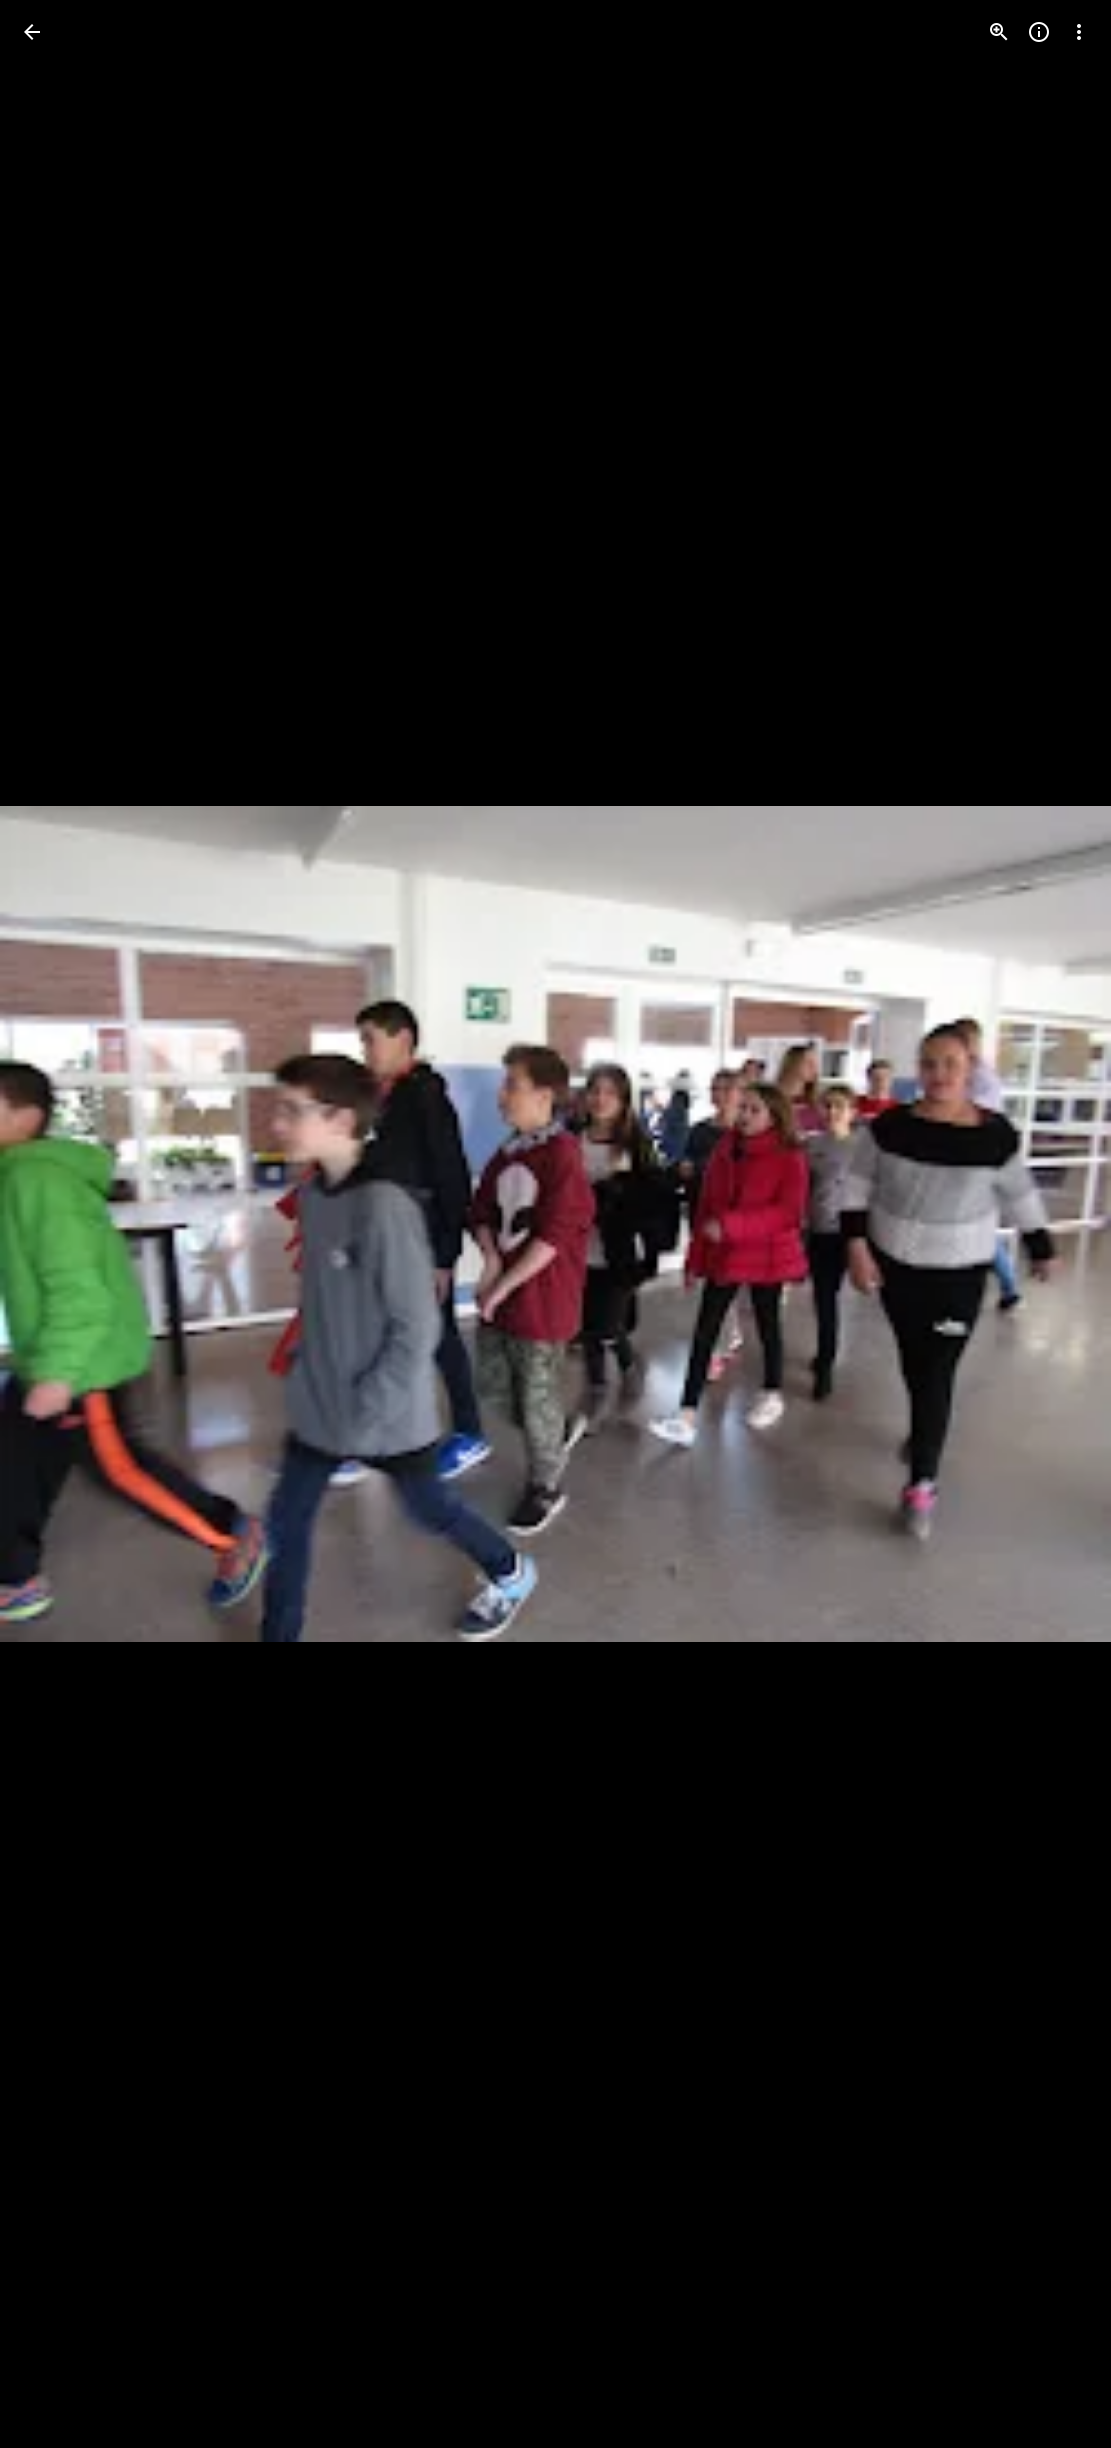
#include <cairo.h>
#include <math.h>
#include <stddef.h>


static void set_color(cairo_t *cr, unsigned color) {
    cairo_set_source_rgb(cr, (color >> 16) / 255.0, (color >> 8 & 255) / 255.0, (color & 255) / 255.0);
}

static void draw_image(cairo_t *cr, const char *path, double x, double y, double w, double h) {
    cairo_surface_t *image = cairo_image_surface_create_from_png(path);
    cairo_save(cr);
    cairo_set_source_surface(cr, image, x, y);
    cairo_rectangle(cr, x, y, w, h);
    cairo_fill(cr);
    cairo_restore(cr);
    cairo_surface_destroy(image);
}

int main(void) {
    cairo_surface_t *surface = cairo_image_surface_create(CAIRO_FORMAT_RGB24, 1111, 2448);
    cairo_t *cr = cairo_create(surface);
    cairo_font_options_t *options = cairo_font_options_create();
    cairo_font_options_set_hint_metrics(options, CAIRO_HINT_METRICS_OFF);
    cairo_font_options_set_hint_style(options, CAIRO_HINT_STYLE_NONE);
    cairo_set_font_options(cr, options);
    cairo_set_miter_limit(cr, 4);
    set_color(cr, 0x000000);
    cairo_paint(cr);
    draw_image(cr, "assets/img1.png", 24, 24, 16, 16);
    draw_image(cr, "assets/img2.png", 990, 23, 18, 18);
    draw_image(cr, "assets/img3.png", 1029, 22, 20, 20);
    draw_image(cr, "assets/img4.png", 1077, 24, 4, 16);
    draw_image(cr, "assets/img5.png", 0, 806, 1111, 836);
    cairo_surface_write_to_png(surface, "output.png");
    cairo_font_options_destroy(options);
    cairo_destroy(cr);
    cairo_surface_destroy(surface);
    return 0;
}
